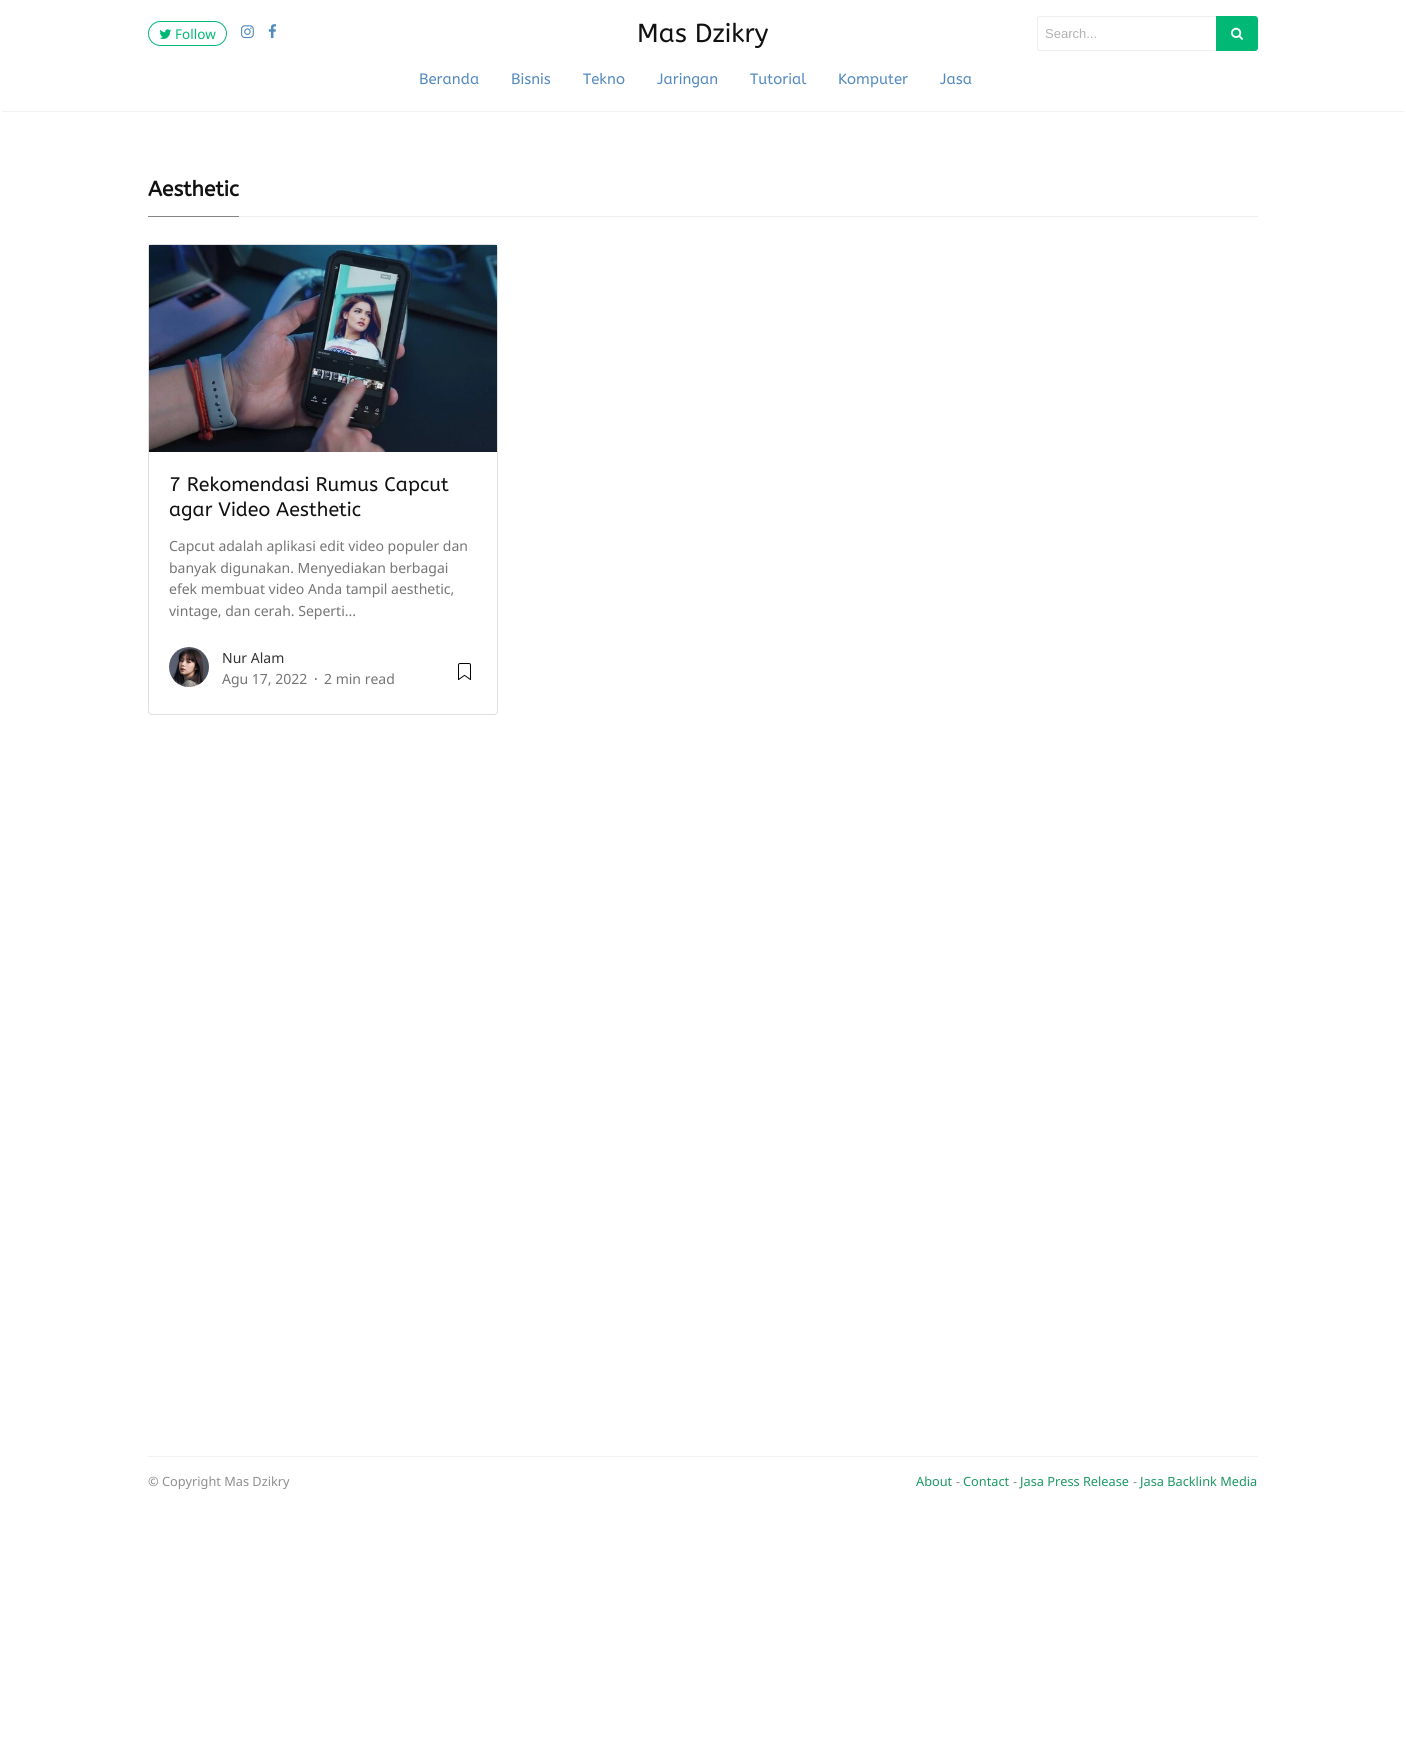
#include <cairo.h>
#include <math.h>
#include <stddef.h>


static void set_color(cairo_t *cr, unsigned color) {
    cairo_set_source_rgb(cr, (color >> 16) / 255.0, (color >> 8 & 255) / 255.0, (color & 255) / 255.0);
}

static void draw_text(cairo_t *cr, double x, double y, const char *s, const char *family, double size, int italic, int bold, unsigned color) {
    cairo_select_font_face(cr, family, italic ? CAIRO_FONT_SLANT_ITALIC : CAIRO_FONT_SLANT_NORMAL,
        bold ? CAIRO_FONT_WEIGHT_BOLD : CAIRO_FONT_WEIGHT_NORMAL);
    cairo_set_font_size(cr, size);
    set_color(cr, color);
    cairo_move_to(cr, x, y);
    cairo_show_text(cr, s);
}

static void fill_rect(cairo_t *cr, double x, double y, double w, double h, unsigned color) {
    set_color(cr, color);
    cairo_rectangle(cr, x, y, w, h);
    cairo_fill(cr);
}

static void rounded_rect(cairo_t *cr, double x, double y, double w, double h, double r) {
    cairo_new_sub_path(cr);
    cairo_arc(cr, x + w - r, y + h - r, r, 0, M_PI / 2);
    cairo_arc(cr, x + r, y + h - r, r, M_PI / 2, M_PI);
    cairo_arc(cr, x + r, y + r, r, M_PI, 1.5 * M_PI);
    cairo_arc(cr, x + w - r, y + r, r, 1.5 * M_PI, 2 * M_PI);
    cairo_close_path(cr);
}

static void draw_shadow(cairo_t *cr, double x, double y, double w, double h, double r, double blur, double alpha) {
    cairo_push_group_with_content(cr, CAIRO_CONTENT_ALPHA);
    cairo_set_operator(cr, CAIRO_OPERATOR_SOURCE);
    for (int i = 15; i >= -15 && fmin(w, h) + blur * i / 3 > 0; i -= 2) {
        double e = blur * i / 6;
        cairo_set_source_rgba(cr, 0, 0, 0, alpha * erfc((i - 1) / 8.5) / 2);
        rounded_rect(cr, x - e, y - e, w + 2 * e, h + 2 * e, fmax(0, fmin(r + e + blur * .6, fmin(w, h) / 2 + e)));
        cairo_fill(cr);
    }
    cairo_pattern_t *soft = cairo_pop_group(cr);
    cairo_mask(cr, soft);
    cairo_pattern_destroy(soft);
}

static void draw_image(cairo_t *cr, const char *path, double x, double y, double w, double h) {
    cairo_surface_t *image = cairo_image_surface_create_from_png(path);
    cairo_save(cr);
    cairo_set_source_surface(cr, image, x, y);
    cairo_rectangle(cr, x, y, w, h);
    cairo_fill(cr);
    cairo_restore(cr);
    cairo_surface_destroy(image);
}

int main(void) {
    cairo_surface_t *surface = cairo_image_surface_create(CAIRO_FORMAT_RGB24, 1406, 1754);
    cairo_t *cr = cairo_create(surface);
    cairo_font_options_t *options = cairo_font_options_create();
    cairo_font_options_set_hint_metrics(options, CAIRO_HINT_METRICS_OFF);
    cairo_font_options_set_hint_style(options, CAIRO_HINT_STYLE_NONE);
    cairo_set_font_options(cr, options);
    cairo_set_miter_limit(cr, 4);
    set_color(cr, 0xFFFFFF);
    cairo_paint(cr);
    cairo_save(cr);
    cairo_rectangle(cr, 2, 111, 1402, 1);
    cairo_clip(cr);
    set_color(cr, 0x000000);
    draw_shadow(cr, 2, 4, 1402, 107, 0, 1, 0.15);
    cairo_restore(cr);
    rounded_rect(cr, 148.5, 21.5, 78, 24, 12);
    set_color(cr, 0x02B875);
    cairo_set_line_width(cr, 1);
    cairo_stroke(cr);
    draw_image(cr, "assets/img1.png", 159, 29, 13, 10);
    draw_text(cr, 175, 39, "Follow", "Noto Sans", 13.5, 0, 0, 0x02B875);
    draw_image(cr, "assets/img2.png", 241, 25, 13, 14);
    draw_image(cr, "assets/img3.png", 268, 24, 9, 15);
    draw_text(cr, 637, 42, "Mas Dzikry", "ABeeZee", 26, 0, 0, 0x111111);
    cairo_new_path(cr);
    cairo_move_to(cr, 1040, 16.5);
    cairo_line_to(cr, 1216.5, 16.5);
    cairo_line_to(cr, 1216.5, 50.5);
    cairo_line_to(cr, 1040, 50.5);
    cairo_curve_to(cr, 1038.5, 50.5, 1037.5, 49.5, 1037.5, 48);
    cairo_line_to(cr, 1037.5, 19);
    cairo_curve_to(cr, 1037.5, 17.5, 1038.5, 16.5, 1040, 16.5);
    cairo_close_path(cr);
    set_color(cr, 0xEEEEEE);
    cairo_stroke(cr);
    draw_text(cr, 1045, 38, "Search...", "Liberation Sans", 13, 0, 0, 0xB2B2B2);
    set_color(cr, 0x02B875);
    cairo_new_path(cr);
    cairo_move_to(cr, 1216, 16);
    cairo_line_to(cr, 1255, 16);
    cairo_curve_to(cr, 1256.5, 16, 1258, 17.5, 1258, 19);
    cairo_line_to(cr, 1258, 48);
    cairo_curve_to(cr, 1258, 49.5, 1256.5, 51, 1255, 51);
    cairo_line_to(cr, 1216, 51);
    cairo_close_path(cr);
    cairo_fill(cr);
    draw_image(cr, "assets/img4.png", 1231, 27, 12, 13);
    draw_text(cr, 419, 84, "Beranda", "ABeeZee", 15, 0, 0, 0x548BBF);
    draw_text(cr, 511, 84, "Bisnis", "ABeeZee", 15, 0, 0, 0x548BBF);
    draw_text(cr, 583, 84, "Tekno", "ABeeZee", 15, 0, 0, 0x548BBF);
    draw_text(cr, 657, 84, "Jaringan", "ABeeZee", 15, 0, 0, 0x548BBF);
    draw_text(cr, 750, 84, "Tutorial", "ABeeZee", 15, 0, 0, 0x548BBF);
    draw_text(cr, 838, 84, "Komputer", "ABeeZee", 15, 0, 0, 0x548BBF);
    draw_text(cr, 940, 84, "Jasa", "ABeeZee", 15, 0, 0, 0x548BBF);
    fill_rect(cr, 239, 216, 1019, 1, 0xEEEEEE);
    fill_rect(cr, 148, 216, 91, 1, 0x858585);
    draw_text(cr, 148, 196, "Aesthetic", "ABeeZee", 21, 0, 1, 0x111111);
    rounded_rect(cr, 148.5, 244.5, 349, 470, 3.5);
    set_color(cr, 0xDFDFDF);
    cairo_stroke(cr);
    draw_image(cr, "assets/img5.png", 149, 245, 348, 207);
    draw_text(cr, 169, 491, "7 Rekomendasi Rumus Capcut", "ABeeZee", 19.6, 0, 0, 0x111111);
    draw_text(cr, 169, 516, "agar Video Aesthetic", "ABeeZee", 19.6, 0, 0, 0x111111);
    draw_text(cr, 169, 551, "Capcut adalah aplikasi edit video populer dan", "Noto Sans", 14, 0, 0, 0x757575);
    draw_text(cr, 169, 573, "banyak digunakan. Menyediakan berbagai", "Noto Sans", 14, 0, 0, 0x757575);
    draw_text(cr, 169, 594, "efek membuat video Anda tampil aesthetic,", "Noto Sans", 14, 0, 0, 0x757575);
    draw_text(cr, 169, 616, "vintage, dan cerah. Seperti...", "Noto Sans", 14, 0, 0, 0x757575);
    draw_image(cr, "assets/img6.png", 169, 647, 40, 40);
    draw_text(cr, 222, 663, "Nur Alam", "Noto Sans", 14, 0, 0, 0x333333);
    draw_text(cr, 222, 684, "Agu 17, 2022", "Noto Sans", 14, 0, 0, 0x757575);
    draw_text(cr, 314, 684, "·", "Noto Sans", 14, 0, 0, 0x666666);
    draw_text(cr, 324, 684, "2 min read", "Noto Sans", 14, 0, 0, 0x757575);
    draw_image(cr, "assets/img7.png", 458, 663, 13, 18);
    fill_rect(cr, 148, 1456, 1110, 1, 0xF2F2F2);
    draw_text(cr, 148, 1486, "© Copyright Mas Dzikry", "Noto Sans", 12.75, 0, 0, 0x8F8F8F);
    draw_text(cr, 916, 1486, "About", "Noto Sans", 12.75, 0, 0, 0x1C9963);
    draw_text(cr, 956, 1486, "-", "Noto Sans", 12.75, 0, 0, 0x8F8F8F);
    draw_text(cr, 963, 1486, "Contact", "Noto Sans", 12.75, 0, 0, 0x1C9963);
    draw_text(cr, 1013, 1486, "-", "Noto Sans", 12.75, 0, 0, 0x8F8F8F);
    draw_text(cr, 1020, 1486, "Jasa Press Release", "Noto Sans", 12.75, 0, 0, 0x1C9963);
    draw_text(cr, 1133, 1486, "-", "Noto Sans", 12.75, 0, 0, 0x8F8F8F);
    draw_text(cr, 1140, 1486, "Jasa Backlink Media", "Noto Sans", 12.75, 0, 0, 0x1C9963);
    cairo_surface_write_to_png(surface, "output.png");
    cairo_font_options_destroy(options);
    cairo_destroy(cr);
    cairo_surface_destroy(surface);
    return 0;
}
